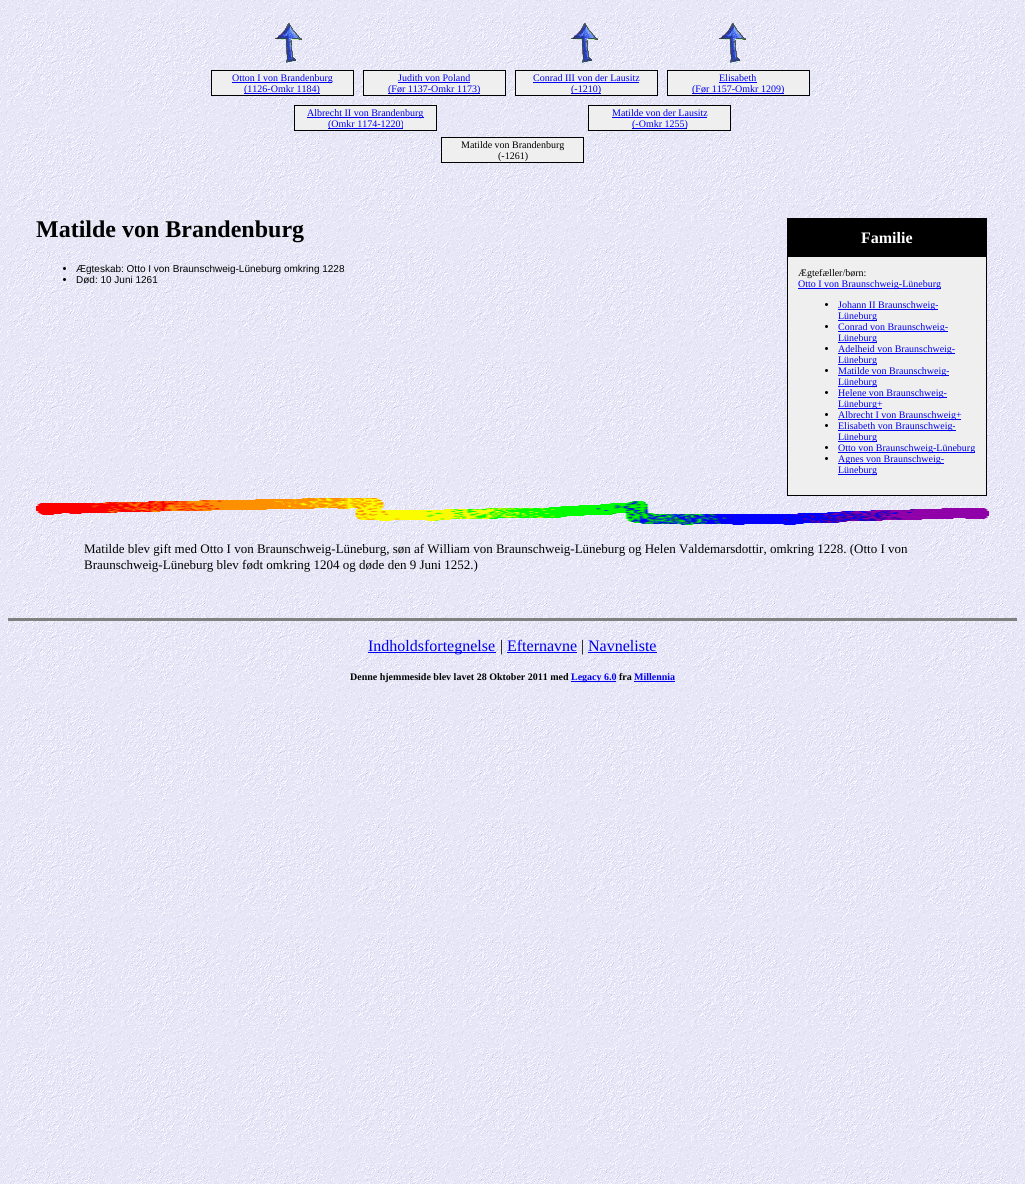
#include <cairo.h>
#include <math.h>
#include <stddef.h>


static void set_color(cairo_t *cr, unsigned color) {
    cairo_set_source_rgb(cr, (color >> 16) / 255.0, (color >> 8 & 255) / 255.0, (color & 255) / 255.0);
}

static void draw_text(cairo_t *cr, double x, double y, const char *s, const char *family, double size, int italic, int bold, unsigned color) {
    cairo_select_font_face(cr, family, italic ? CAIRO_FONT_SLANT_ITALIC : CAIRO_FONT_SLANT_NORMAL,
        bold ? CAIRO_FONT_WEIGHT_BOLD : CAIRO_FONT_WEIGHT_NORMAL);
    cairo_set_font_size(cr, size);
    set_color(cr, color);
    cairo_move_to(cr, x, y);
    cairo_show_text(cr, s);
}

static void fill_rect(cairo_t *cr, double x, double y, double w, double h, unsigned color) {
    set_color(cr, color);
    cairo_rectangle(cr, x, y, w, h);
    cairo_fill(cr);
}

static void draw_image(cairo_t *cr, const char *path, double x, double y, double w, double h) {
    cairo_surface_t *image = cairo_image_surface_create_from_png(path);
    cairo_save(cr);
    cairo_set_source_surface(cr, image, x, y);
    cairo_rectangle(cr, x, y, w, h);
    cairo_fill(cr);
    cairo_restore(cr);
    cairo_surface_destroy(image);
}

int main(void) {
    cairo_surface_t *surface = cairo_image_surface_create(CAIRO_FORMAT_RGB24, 1025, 1184);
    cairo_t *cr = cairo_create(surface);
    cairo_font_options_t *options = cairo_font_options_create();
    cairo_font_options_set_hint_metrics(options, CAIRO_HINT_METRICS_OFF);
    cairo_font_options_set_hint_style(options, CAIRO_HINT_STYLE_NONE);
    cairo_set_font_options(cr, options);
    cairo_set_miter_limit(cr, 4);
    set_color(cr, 0xFFFFFF);
    cairo_paint(cr);
    draw_image(cr, "assets/img1.png", 0, 0, 1025, 1184);
    draw_image(cr, "assets/img2.png", 275, 22, 27, 41);
    draw_image(cr, "assets/img3.png", 571, 22, 27, 41);
    draw_image(cr, "assets/img4.png", 719, 22, 27, 41);
    fill_rect(cr, 211, 70, 143, 26, 0x000000);
    fill_rect(cr, 212, 71, 141, 24, 0xEFEFEF);
    fill_rect(cr, 232, 82, 100, 1, 0x0000EE);
    draw_text(cr, 232, 81, "Otton I von Brandenburg", "Liberation Serif", 10, 0, 0, 0x0000EE);
    fill_rect(cr, 244, 93, 76, 1, 0x0000EE);
    draw_text(cr, 244, 92, "(1126-Omkr 1184)", "Liberation Serif", 10, 0, 0, 0x0000EE);
    fill_rect(cr, 363, 70, 143, 26, 0x000000);
    fill_rect(cr, 364, 71, 141, 24, 0xEFEFEF);
    draw_text(cr, 398, 81, "Judith von Poland", "Liberation Serif", 10, 0, 0, 0x0000EE);
    fill_rect(cr, 398, 82, 72, 1, 0x0000EE);
    fill_rect(cr, 388, 93, 92, 1, 0x0000EE);
    draw_text(cr, 388, 92, "(Før 1137-Omkr 1173)", "Liberation Serif", 10, 0, 0, 0x0000EE);
    fill_rect(cr, 515, 70, 143, 26, 0x000000);
    fill_rect(cr, 516, 71, 141, 24, 0xEFEFEF);
    draw_text(cr, 533, 81, "Conrad III von der Lausitz", "Liberation Serif", 10, 0, 0, 0x0000EE);
    fill_rect(cr, 533, 82, 106, 1, 0x0000EE);
    fill_rect(cr, 571, 93, 30, 1, 0x0000EE);
    draw_text(cr, 571, 92, "(-1210)", "Liberation Serif", 10, 0, 0, 0x0000EE);
    fill_rect(cr, 667, 70, 143, 26, 0x000000);
    fill_rect(cr, 668, 71, 141, 24, 0xEFEFEF);
    draw_text(cr, 719, 81, "Elisabeth", "Liberation Serif", 10, 0, 0, 0x0000EE);
    fill_rect(cr, 719, 82, 38, 1, 0x0000EE);
    fill_rect(cr, 692, 93, 92, 1, 0x0000EE);
    draw_text(cr, 692, 92, "(Før 1157-Omkr 1209)", "Liberation Serif", 10, 0, 0, 0x0000EE);
    fill_rect(cr, 294, 105, 143, 26, 0x000000);
    fill_rect(cr, 295, 106, 141, 24, 0xEFEFEF);
    fill_rect(cr, 307, 117, 117, 1, 0x0000EE);
    draw_text(cr, 307, 116, "Albrecht II von Brandenburg", "Liberation Serif", 10, 0, 0, 0x0000EE);
    fill_rect(cr, 328, 128, 75, 1, 0x0000EE);
    draw_text(cr, 328, 127, "(Omkr 1174-1220)", "Liberation Serif", 10, 0, 0, 0x0000EE);
    fill_rect(cr, 588, 105, 143, 26, 0x000000);
    fill_rect(cr, 589, 106, 141, 24, 0xEFEFEF);
    draw_text(cr, 612, 116, "Matilde von der Lausitz", "Liberation Serif", 10, 0, 0, 0x0000EE);
    fill_rect(cr, 612, 117, 95, 1, 0x0000EE);
    fill_rect(cr, 632, 128, 55, 1, 0x0000EE);
    draw_text(cr, 632, 127, "(-Omkr 1255)", "Liberation Serif", 10, 0, 0, 0x0000EE);
    fill_rect(cr, 441, 137, 143, 26, 0x000000);
    fill_rect(cr, 442, 138, 141, 24, 0xEFEFEF);
    draw_text(cr, 461, 148, "Matilde von Brandenburg", "Liberation Serif", 10, 0, 0, 0x000000);
    draw_text(cr, 498, 159, "(-1261)", "Liberation Serif", 10, 0, 0, 0x000000);
    draw_text(cr, 36, 237, "Matilde von Brandenburg", "Liberation Serif", 24, 0, 1, 0x000000);
    fill_rect(cr, 787, 218, 200, 278, 0x000000);
    draw_text(cr, 861, 243, "Familie", "Liberation Serif", 16, 0, 1, 0xFFFFFF);
    fill_rect(cr, 788, 257, 198, 238, 0xEFEFEF);
    draw_text(cr, 798, 276, "Ægtefæller/børn:", "Liberation Serif", 10, 0, 0, 0x000000);
    fill_rect(cr, 798, 288, 143, 1, 0x0000EE);
    draw_text(cr, 798, 287, "Otto I von Braunschweig-Lüneburg", "Liberation Serif", 10, 0, 0, 0x0000EE);
    set_color(cr, 0x000000);
    cairo_new_path(cr);
    cairo_arc(cr, 826.5, 304.5, 1.5, 0, 2 * M_PI);
    cairo_fill(cr);
    fill_rect(cr, 838, 309, 100, 1, 0x0000EE);
    draw_text(cr, 838, 308, "Johann II Braunschweig-", "Liberation Serif", 10, 0, 0, 0x0000EE);
    fill_rect(cr, 838, 320, 39, 1, 0x0000EE);
    draw_text(cr, 838, 319, "Lüneburg", "Liberation Serif", 10, 0, 0, 0x0000EE);
    set_color(cr, 0x000000);
    cairo_new_path(cr);
    cairo_arc(cr, 826.5, 326.5, 1.5, 0, 2 * M_PI);
    cairo_fill(cr);
    fill_rect(cr, 838, 331, 110, 1, 0x0000EE);
    draw_text(cr, 838, 330, "Conrad von Braunschweig-", "Liberation Serif", 10, 0, 0, 0x0000EE);
    fill_rect(cr, 838, 342, 39, 1, 0x0000EE);
    draw_text(cr, 838, 341, "Lüneburg", "Liberation Serif", 10, 0, 0, 0x0000EE);
    set_color(cr, 0x000000);
    cairo_new_path(cr);
    cairo_arc(cr, 826.5, 348.5, 1.5, 0, 2 * M_PI);
    cairo_fill(cr);
    fill_rect(cr, 838, 353, 117, 1, 0x0000EE);
    draw_text(cr, 838, 352, "Adelheid von Braunschweig-", "Liberation Serif", 10, 0, 0, 0x0000EE);
    fill_rect(cr, 838, 364, 39, 1, 0x0000EE);
    draw_text(cr, 838, 363, "Lüneburg", "Liberation Serif", 10, 0, 0, 0x0000EE);
    set_color(cr, 0x000000);
    cairo_new_path(cr);
    cairo_arc(cr, 826.5, 370.5, 1.5, 0, 2 * M_PI);
    cairo_fill(cr);
    fill_rect(cr, 838, 375, 111, 1, 0x0000EE);
    draw_text(cr, 838, 374, "Matilde von Braunschweig-", "Liberation Serif", 10, 0, 0, 0x0000EE);
    fill_rect(cr, 838, 386, 39, 1, 0x0000EE);
    draw_text(cr, 838, 385, "Lüneburg", "Liberation Serif", 10, 0, 0, 0x0000EE);
    set_color(cr, 0x000000);
    cairo_new_path(cr);
    cairo_arc(cr, 826.5, 392.5, 1.5, 0, 2 * M_PI);
    cairo_fill(cr);
    fill_rect(cr, 838, 397, 109, 1, 0x0000EE);
    draw_text(cr, 838, 396, "Helene von Braunschweig-", "Liberation Serif", 10, 0, 0, 0x0000EE);
    fill_rect(cr, 838, 408, 44, 1, 0x0000EE);
    draw_text(cr, 838, 407, "Lüneburg+", "Liberation Serif", 10, 0, 0, 0x0000EE);
    set_color(cr, 0x000000);
    cairo_new_path(cr);
    cairo_arc(cr, 826.5, 414.5, 1.5, 0, 2 * M_PI);
    cairo_fill(cr);
    fill_rect(cr, 838, 419, 123, 1, 0x0000EE);
    draw_text(cr, 838, 418, "Albrecht I von Braunschweig+", "Liberation Serif", 10, 0, 0, 0x0000EE);
    set_color(cr, 0x000000);
    cairo_new_path(cr);
    cairo_arc(cr, 826.5, 425.5, 1.5, 0, 2 * M_PI);
    cairo_fill(cr);
    fill_rect(cr, 838, 430, 118, 1, 0x0000EE);
    draw_text(cr, 838, 429, "Elisabeth von Braunschweig-", "Liberation Serif", 10, 0, 0, 0x0000EE);
    fill_rect(cr, 838, 441, 39, 1, 0x0000EE);
    draw_text(cr, 838, 440, "Lüneburg", "Liberation Serif", 10, 0, 0, 0x0000EE);
    set_color(cr, 0x000000);
    cairo_new_path(cr);
    cairo_arc(cr, 826.5, 447.5, 1.5, 0, 2 * M_PI);
    cairo_fill(cr);
    fill_rect(cr, 838, 452, 137, 1, 0x0000EE);
    draw_text(cr, 838, 451, "Otto von Braunschweig-Lüneburg", "Liberation Serif", 10, 0, 0, 0x0000EE);
    set_color(cr, 0x000000);
    cairo_new_path(cr);
    cairo_arc(cr, 826.5, 458.5, 1.5, 0, 2 * M_PI);
    cairo_fill(cr);
    fill_rect(cr, 838, 463, 106, 1, 0x0000EE);
    draw_text(cr, 838, 462, "Agnes von Braunschweig-", "Liberation Serif", 10, 0, 0, 0x0000EE);
    fill_rect(cr, 838, 474, 39, 1, 0x0000EE);
    draw_text(cr, 838, 473, "Lüneburg", "Liberation Serif", 10, 0, 0, 0x0000EE);
    set_color(cr, 0x000000);
    cairo_new_path(cr);
    cairo_arc(cr, 64.5, 268.5, 1.5, 0, 2 * M_PI);
    cairo_fill(cr);
    draw_text(cr, 76, 272, "Ægteskab: Otto I von Braunschweig-Lüneburg omkring 1228", "Liberation Sans", 10, 0, 0, 0x000000);
    cairo_new_path(cr);
    cairo_arc(cr, 64.5, 279.5, 1.5, 0, 2 * M_PI);
    cairo_fill(cr);
    draw_text(cr, 76, 283, "Død: 10 Juni 1261", "Liberation Sans", 10, 0, 0, 0x000000);
    draw_image(cr, "assets/img5.png", 36, 498, 953, 27);
    draw_text(cr, 84, 553, "Matilde blev gift med Otto I von Braunschweig-Lüneburg, søn af William von Braunschweig-Lüneburg og Helen Valdemarsdottir, omkring 1228. (Otto I von", "Liberation Serif", 13, 0, 0, 0x000000);
    draw_text(cr, 84, 569, "Braunschweig-Lüneburg blev født omkring 1204 og døde den 9 Juni 1252.)", "Liberation Serif", 13, 0, 0, 0x000000);
    fill_rect(cr, 8, 618, 1009, 3, 0x808080);
    fill_rect(cr, 368, 652, 128, 1, 0x0000EE);
    draw_text(cr, 368, 651, "Indholdsfortegnelse", "Liberation Serif", 16, 0, 0, 0x0000EE);
    draw_text(cr, 500, 651, "|", "Liberation Serif", 16, 0, 0, 0x000000);
    draw_text(cr, 507, 651, "Efternavne", "Liberation Serif", 16, 0, 0, 0x0000EE);
    fill_rect(cr, 507, 652, 70, 1, 0x0000EE);
    draw_text(cr, 581, 651, "|", "Liberation Serif", 16, 0, 0, 0x000000);
    draw_text(cr, 588, 651, "Navneliste", "Liberation Serif", 16, 0, 0, 0x0000EE);
    fill_rect(cr, 588, 652, 69, 1, 0x0000EE);
    draw_text(cr, 350, 680, "Denne hjemmeside blev lavet 28 Oktober 2011 med", "Liberation Serif", 10, 0, 1, 0x000000);
    fill_rect(cr, 571, 681, 45, 1, 0x0000EE);
    draw_text(cr, 571, 680, "Legacy 6.0", "Liberation Serif", 10, 0, 1, 0x0000EE);
    draw_text(cr, 619, 680, "fra", "Liberation Serif", 10, 0, 1, 0x000000);
    draw_text(cr, 634, 680, "Millennia", "Liberation Serif", 10, 0, 1, 0x0000EE);
    fill_rect(cr, 634, 681, 41, 1, 0x0000EE);
    cairo_surface_write_to_png(surface, "output.png");
    cairo_font_options_destroy(options);
    cairo_destroy(cr);
    cairo_surface_destroy(surface);
    return 0;
}
